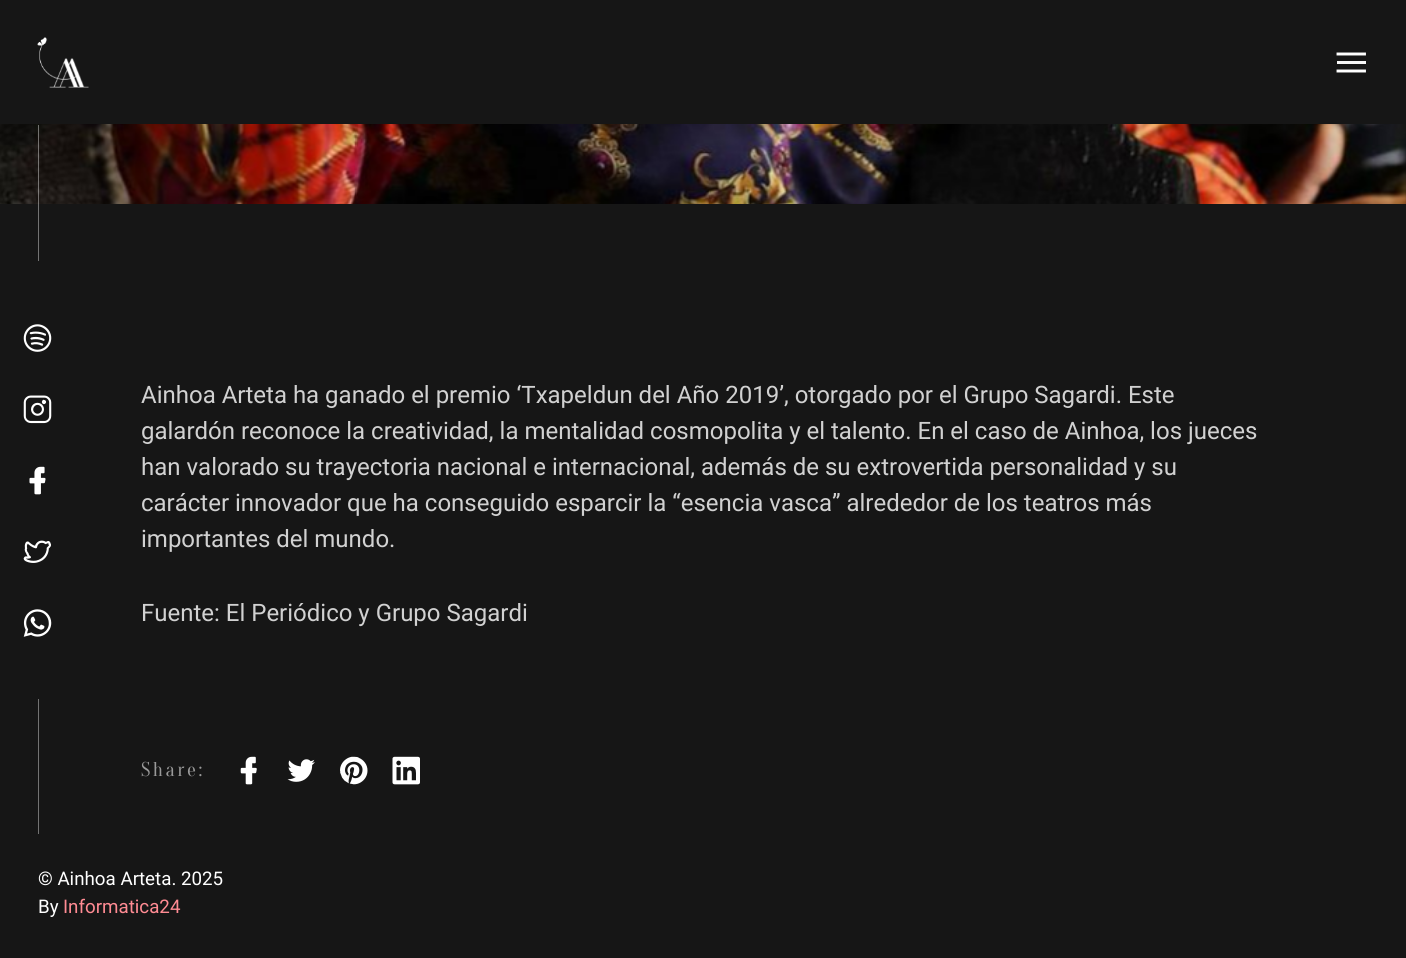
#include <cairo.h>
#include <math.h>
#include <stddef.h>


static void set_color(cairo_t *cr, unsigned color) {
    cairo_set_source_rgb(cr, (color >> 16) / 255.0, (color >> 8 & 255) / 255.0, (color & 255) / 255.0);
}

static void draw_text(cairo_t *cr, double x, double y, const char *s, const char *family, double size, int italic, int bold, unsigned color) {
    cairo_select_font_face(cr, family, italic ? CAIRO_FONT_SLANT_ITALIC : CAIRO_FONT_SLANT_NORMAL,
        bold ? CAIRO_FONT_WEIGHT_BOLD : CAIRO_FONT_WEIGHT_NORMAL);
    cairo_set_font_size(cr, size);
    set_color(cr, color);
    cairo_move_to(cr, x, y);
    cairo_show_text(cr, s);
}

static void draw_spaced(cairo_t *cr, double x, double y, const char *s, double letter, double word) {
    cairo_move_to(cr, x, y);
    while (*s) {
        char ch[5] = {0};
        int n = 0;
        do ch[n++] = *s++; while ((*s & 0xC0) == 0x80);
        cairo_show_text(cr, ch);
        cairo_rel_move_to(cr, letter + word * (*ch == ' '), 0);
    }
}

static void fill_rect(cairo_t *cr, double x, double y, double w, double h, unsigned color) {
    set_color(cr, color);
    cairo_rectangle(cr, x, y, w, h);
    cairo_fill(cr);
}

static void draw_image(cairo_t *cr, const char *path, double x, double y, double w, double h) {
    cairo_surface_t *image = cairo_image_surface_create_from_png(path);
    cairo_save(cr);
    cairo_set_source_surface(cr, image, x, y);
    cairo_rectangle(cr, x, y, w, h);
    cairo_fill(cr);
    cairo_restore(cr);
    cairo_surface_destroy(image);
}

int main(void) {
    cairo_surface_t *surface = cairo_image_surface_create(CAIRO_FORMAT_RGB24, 1406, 958);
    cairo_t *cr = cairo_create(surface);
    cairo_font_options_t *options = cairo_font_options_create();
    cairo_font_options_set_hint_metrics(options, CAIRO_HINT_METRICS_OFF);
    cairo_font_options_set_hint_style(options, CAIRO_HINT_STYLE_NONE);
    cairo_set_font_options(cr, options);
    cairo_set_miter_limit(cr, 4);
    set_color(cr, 0x161616);
    cairo_paint(cr);
    draw_image(cr, "assets/img1.png", 37, 37, 52, 51);
    fill_rect(cr, 1337, 61, 29, 3, 0xF7F7F7);
    cairo_new_path(cr);
    cairo_move_to(cr, 1338, 54);
    cairo_line_to(cr, 1364.5, 54);
    cairo_move_to(cr, 1338, 71);
    cairo_line_to(cr, 1364.5, 71);
    set_color(cr, 0xFFFFFF);
    cairo_set_line_width(cr, 2.9);
    cairo_set_line_cap(cr, CAIRO_LINE_CAP_SQUARE);
    cairo_set_line_join(cr, CAIRO_LINE_JOIN_ROUND);
    cairo_stroke(cr);
    draw_image(cr, "assets/img7.png", 0, 124, 1406, 80);
    cairo_set_source_rgba(cr, 1, 1, 1, 0.4);
    cairo_rectangle(cr, 38, 125, 1, 136);
    cairo_fill(cr);
    draw_image(cr, "assets/img2.png", 23, 324, 29, 28);
    draw_image(cr, "assets/img3.png", 23, 395, 29, 29);
    draw_image(cr, "assets/img4.png", 29, 466, 17, 29);
    draw_image(cr, "assets/img5.png", 23, 540, 28, 23);
    draw_image(cr, "assets/img6.png", 23, 609, 29, 28);
    fill_rect(cr, 38, 699, 1, 135, 0x737373);
    draw_text(cr, 141, 403, "Ainhoa Arteta ha ganado el premio ‘Txapeldun del Año 2019’, otorgado por el Grupo Sagardi. Este", "Roboto", 24, 0, 0, 0xD1D1D1);
    draw_text(cr, 141, 439, "galardón reconoce la creatividad, la mentalidad cosmopolita y el talento. En el caso de Ainhoa, los jueces", "Roboto", 24, 0, 0, 0xD1D1D1);
    draw_text(cr, 141, 475, "han valorado su trayectoria nacional e internacional, además de su extrovertida personalidad y su", "Roboto", 24, 0, 0, 0xD1D1D1);
    draw_text(cr, 141, 511, "carácter innovador que ha conseguido esparcir la “esencia vasca” alrededor de los teatros más", "Roboto", 24, 0, 0, 0xD1D1D1);
    draw_text(cr, 141, 547, "importantes del mundo.", "Roboto", 24, 0, 0, 0xD1D1D1);
    draw_text(cr, 141, 621, "Fuente: El Periódico y Grupo Sagardi", "Roboto", 24, 0, 0, 0xD1D1D1);
    cairo_select_font_face(cr, "Oranienbaum", CAIRO_FONT_SLANT_NORMAL, CAIRO_FONT_WEIGHT_NORMAL);
    cairo_set_font_size(cr, 20);
    set_color(cr, 0x999999);
    draw_spaced(cr, 141, 776, "Share:", 2.5, 0);
    draw_image(cr, "assets/img8.png", 240, 756, 17, 29);
    draw_image(cr, "assets/img9.png", 287, 759, 28, 23);
    draw_image(cr, "assets/img10.png", 340, 756, 28, 29);
    draw_image(cr, "assets/img11.png", 392, 756, 28, 29);
    draw_text(cr, 38, 885, "© Ainhoa Arteta. 2025", "Roboto", 18.75, 0, 0, 0xFFFFFF);
    draw_text(cr, 38, 913, "By", "Roboto", 18.75, 0, 0, 0xFFFFFF);
    draw_text(cr, 63, 913, "Informatica24", "Roboto", 18.75, 0, 0, 0xFF8B93);
    cairo_surface_write_to_png(surface, "output.png");
    cairo_font_options_destroy(options);
    cairo_destroy(cr);
    cairo_surface_destroy(surface);
    return 0;
}
